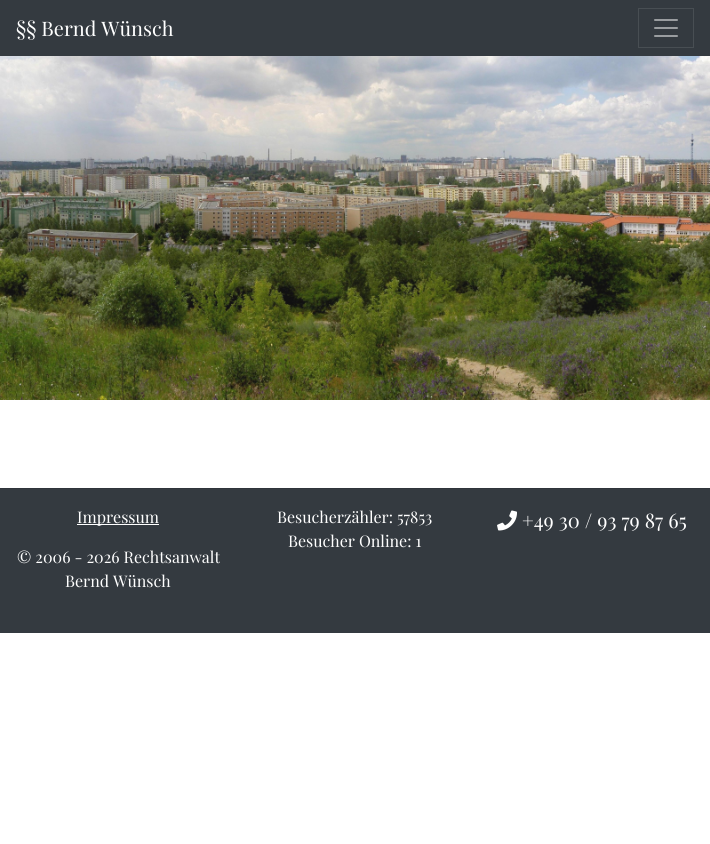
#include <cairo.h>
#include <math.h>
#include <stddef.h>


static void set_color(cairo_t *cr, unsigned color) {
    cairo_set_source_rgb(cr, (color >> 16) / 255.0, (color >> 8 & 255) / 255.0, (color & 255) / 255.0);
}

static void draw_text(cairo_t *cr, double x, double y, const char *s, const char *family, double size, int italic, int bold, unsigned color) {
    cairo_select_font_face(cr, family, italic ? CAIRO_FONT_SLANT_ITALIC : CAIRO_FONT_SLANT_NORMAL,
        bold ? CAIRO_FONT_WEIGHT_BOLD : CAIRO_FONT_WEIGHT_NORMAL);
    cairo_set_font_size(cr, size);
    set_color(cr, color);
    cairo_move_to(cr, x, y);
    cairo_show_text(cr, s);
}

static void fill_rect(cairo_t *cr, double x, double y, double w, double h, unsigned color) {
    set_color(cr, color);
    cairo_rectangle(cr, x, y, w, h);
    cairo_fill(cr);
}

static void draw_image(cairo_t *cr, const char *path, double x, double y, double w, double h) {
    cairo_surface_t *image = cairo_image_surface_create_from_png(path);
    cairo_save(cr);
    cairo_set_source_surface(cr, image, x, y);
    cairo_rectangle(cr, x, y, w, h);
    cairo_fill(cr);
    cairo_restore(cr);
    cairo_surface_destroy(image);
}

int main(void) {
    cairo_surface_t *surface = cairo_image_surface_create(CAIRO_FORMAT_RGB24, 710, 844);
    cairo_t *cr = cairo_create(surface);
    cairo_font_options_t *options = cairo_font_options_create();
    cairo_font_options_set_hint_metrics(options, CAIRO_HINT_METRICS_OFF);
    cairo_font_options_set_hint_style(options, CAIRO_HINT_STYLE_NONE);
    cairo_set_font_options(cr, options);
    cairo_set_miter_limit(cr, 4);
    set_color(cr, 0xFFFFFF);
    cairo_paint(cr);
    fill_rect(cr, 0, 0, 710, 56, 0x343A40);
    draw_text(cr, 16, 36, "§§ Bernd Wünsch", "Playfair Display", 20, 0, 0, 0xFFFFFF);
    cairo_rectangle(cr, 638.5, 8.5, 55, 39);
    set_color(cr, 0x484E53);
    cairo_set_line_width(cr, 1);
    cairo_stroke(cr);
    draw_image(cr, "assets/img1.png", 654, 19, 24, 18);
    draw_image(cr, "assets/img2.png", 0, 56, 710, 344);
    fill_rect(cr, 0, 489, 710, 144, 0x343A40);
    fill_rect(cr, 0, 488, 710, 1, 0x2F343A);
    fill_rect(cr, 77, 524, 82, 1, 0xFFFFFF);
    draw_text(cr, 77, 523, "Impressum", "Playfair Display", 16, 0, 0, 0xFFFFFF);
    draw_text(cr, 17, 563, "© 2006 - 2026 Rechtsanwalt", "Playfair Display", 16, 0, 0, 0xFFFFFF);
    draw_text(cr, 65, 587, "Bernd Wünsch", "Playfair Display", 16, 0, 0, 0xFFFFFF);
    draw_text(cr, 277, 523, "Besucherzähler: 57853", "Playfair Display", 16, 0, 0, 0xFFFFFF);
    draw_text(cr, 288, 547, "Besucher Online: 1", "Playfair Display", 16, 0, 0, 0xFFFFFF);
    draw_image(cr, "assets/img3.png", 497, 510, 20, 21);
    draw_text(cr, 522, 528, "+49 30 / 93 79 87 65", "Playfair Display", 20, 0, 0, 0xFFFFFF);
    cairo_surface_write_to_png(surface, "output.png");
    cairo_font_options_destroy(options);
    cairo_destroy(cr);
    cairo_surface_destroy(surface);
    return 0;
}
